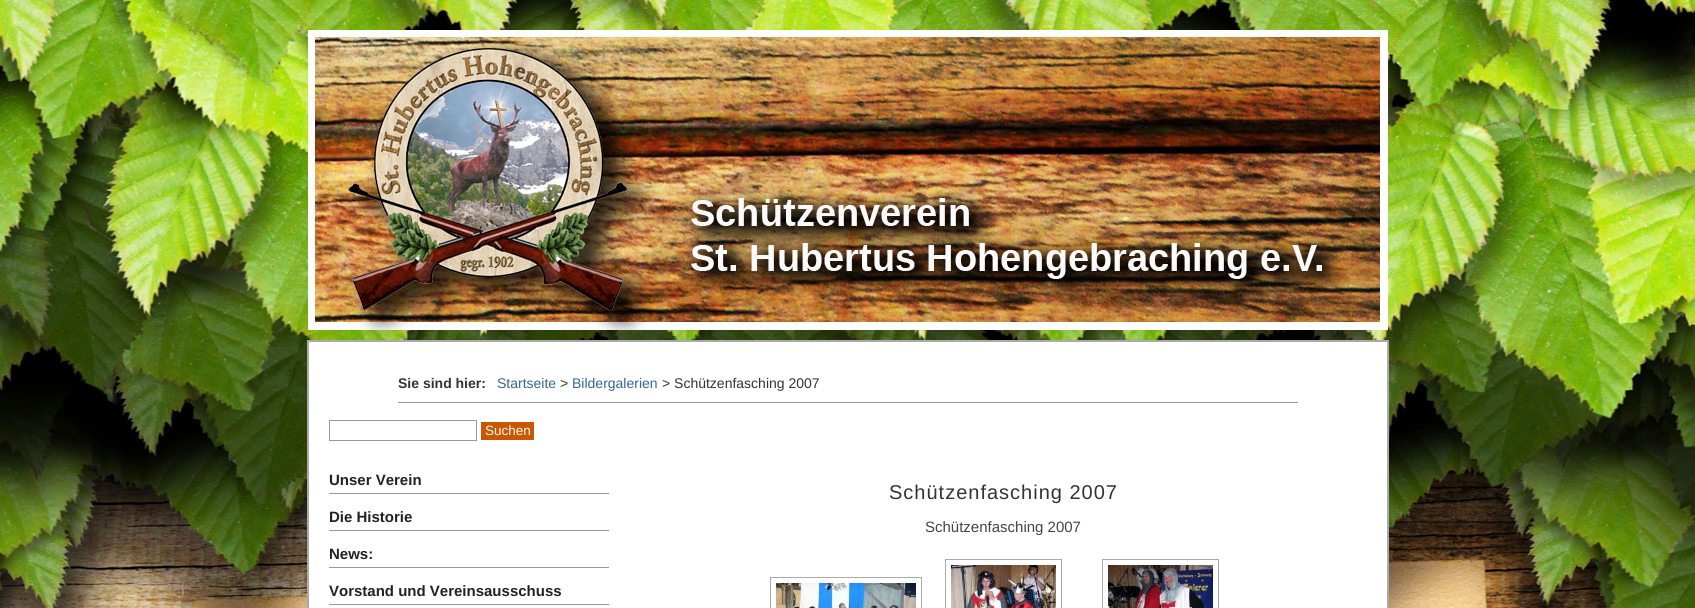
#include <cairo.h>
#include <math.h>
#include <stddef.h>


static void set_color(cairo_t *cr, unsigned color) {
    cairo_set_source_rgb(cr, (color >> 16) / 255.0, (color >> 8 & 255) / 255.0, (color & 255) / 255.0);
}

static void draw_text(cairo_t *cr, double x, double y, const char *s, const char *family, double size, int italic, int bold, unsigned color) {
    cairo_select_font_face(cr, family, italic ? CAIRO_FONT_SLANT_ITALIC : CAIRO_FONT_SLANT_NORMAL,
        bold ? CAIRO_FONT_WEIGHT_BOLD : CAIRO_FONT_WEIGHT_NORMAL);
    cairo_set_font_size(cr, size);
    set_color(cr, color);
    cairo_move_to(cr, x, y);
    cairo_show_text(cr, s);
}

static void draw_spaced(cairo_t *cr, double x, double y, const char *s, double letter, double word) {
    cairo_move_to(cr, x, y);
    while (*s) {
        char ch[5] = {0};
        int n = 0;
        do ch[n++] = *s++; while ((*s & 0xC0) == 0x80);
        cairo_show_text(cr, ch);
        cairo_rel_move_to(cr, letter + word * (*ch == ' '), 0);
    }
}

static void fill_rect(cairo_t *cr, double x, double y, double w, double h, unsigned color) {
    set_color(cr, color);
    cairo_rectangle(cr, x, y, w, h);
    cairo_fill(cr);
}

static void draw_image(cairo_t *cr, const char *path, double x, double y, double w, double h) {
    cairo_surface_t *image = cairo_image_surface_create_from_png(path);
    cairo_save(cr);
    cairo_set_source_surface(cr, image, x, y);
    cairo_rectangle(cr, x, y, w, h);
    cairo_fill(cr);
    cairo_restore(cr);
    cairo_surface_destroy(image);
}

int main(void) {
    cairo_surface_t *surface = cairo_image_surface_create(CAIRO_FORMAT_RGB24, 1695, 608);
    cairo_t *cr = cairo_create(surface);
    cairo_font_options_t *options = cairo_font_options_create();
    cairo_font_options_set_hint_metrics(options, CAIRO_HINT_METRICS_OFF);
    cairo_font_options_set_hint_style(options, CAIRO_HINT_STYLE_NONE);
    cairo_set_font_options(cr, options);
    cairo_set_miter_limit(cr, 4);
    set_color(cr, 0xFFFFFF);
    cairo_paint(cr);
    draw_image(cr, "assets/img1.png", 0, 0, 1695, 608);
    draw_image(cr, "assets/img2.png", 308, 30, 1080, 300);
    set_color(cr, 0xFFFFFF);
    cairo_rectangle(cr, 308, 341, 1080, 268);
    cairo_fill_preserve(cr);
    set_color(cr, 0xAAAAAA);
    cairo_stroke(cr);
    fill_rect(cr, 398, 402, 900, 1, 0x999999);
    draw_text(cr, 398, 388, "Sie sind hier:", "Liberation Sans", 14, 0, 1, 0x333333);
    draw_text(cr, 497, 388, "Startseite", "Liberation Sans", 14, 0, 0, 0x336699);
    draw_text(cr, 560, 388, ">", "Liberation Sans", 14, 0, 0, 0x333333);
    draw_text(cr, 572, 388, "Bildergalerien", "Liberation Sans", 14, 0, 0, 0x336699);
    draw_text(cr, 662, 388, "> Schützenfasching 2007", "Liberation Sans", 14, 0, 0, 0x333333);
    cairo_rectangle(cr, 329.5, 420.5, 147, 20);
    set_color(cr, 0x999999);
    cairo_set_line_width(cr, 1);
    cairo_stroke(cr);
    fill_rect(cr, 481, 422, 53, 18, 0xCC5500);
    draw_text(cr, 485, 435, "Suchen", "Liberation Sans", 13.5, 0, 0, 0xFFFFFF);
    fill_rect(cr, 329, 493, 280, 1, 0x999999);
    draw_text(cr, 329, 485, "Unser Verein", "Liberation Sans", 15, 0, 1, 0x222222);
    fill_rect(cr, 329, 530, 280, 1, 0x999999);
    draw_text(cr, 329, 522, "Die Historie", "Liberation Sans", 15, 0, 1, 0x222222);
    fill_rect(cr, 329, 567, 280, 1, 0x999999);
    draw_text(cr, 329, 559, "News:", "Liberation Sans", 15, 0, 1, 0x222222);
    fill_rect(cr, 329, 604, 280, 1, 0x999999);
    draw_text(cr, 329, 596, "Vorstand und Vereinsausschuss", "Liberation Sans", 15, 0, 1, 0x222222);
    cairo_select_font_face(cr, "Liberation Sans", CAIRO_FONT_SLANT_NORMAL, CAIRO_FONT_WEIGHT_NORMAL);
    cairo_set_font_size(cr, 20);
    set_color(cr, 0x333333);
    draw_spaced(cr, 889, 499, "Schützenfasching 2007", 1, 0);
    draw_text(cr, 925, 532, "Schützenfasching 2007", "Liberation Sans", 15, 0, 0, 0x444444);
    cairo_rectangle(cr, 770.5, 577.5, 151, 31);
    set_color(cr, 0xAAAAAA);
    cairo_stroke(cr);
    draw_image(cr, "assets/img3.png", 776, 583, 140, 25);
    cairo_rectangle(cr, 945.5, 559.5, 116, 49);
    cairo_stroke(cr);
    draw_image(cr, "assets/img4.png", 951, 565, 105, 43);
    cairo_rectangle(cr, 1102.5, 559.5, 116, 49);
    cairo_stroke(cr);
    draw_image(cr, "assets/img5.png", 1108, 565, 105, 43);
    cairo_surface_write_to_png(surface, "output.png");
    cairo_font_options_destroy(options);
    cairo_destroy(cr);
    cairo_surface_destroy(surface);
    return 0;
}
